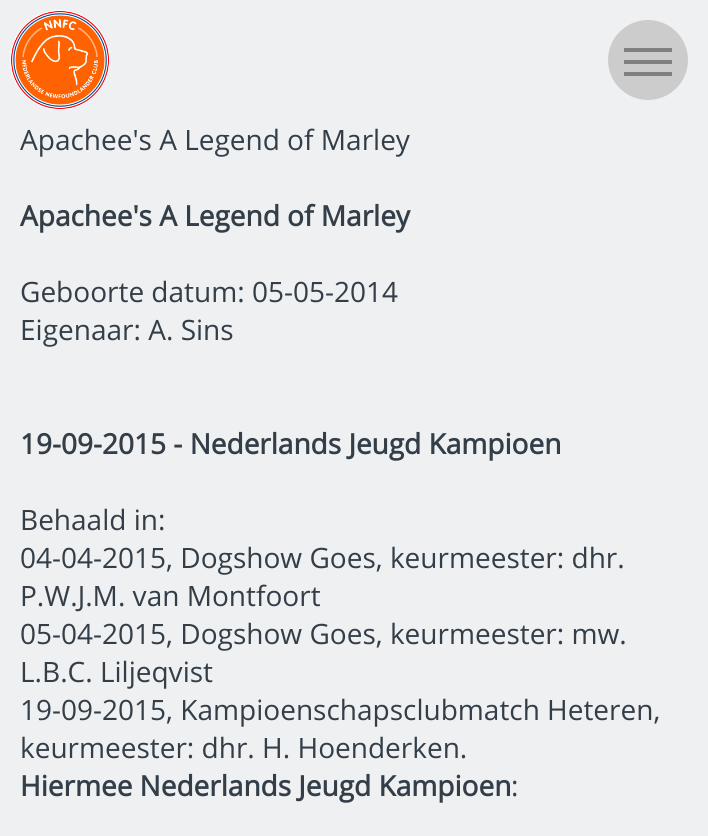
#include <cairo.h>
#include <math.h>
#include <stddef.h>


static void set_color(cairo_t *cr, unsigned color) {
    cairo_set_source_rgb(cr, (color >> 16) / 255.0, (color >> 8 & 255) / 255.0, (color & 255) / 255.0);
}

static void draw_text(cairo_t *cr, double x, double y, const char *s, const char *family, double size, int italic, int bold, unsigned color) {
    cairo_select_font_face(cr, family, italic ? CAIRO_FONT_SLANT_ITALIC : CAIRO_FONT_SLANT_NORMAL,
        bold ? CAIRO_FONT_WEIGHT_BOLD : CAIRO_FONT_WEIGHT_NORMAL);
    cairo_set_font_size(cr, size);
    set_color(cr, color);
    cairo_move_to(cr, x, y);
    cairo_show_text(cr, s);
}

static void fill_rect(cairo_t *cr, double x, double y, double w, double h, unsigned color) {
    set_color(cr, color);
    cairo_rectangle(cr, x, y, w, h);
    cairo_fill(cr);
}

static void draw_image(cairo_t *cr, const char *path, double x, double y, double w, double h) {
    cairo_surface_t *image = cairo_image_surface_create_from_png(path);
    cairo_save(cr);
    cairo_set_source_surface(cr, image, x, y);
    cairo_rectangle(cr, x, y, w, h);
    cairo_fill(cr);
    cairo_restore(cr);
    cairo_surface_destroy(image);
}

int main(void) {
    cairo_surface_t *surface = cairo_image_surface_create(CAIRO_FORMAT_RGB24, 708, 836);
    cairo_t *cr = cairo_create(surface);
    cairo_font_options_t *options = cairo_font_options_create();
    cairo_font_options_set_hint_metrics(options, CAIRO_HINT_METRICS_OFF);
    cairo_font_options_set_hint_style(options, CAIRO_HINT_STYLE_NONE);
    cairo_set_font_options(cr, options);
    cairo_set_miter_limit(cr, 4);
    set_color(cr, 0xEFF0F1);
    cairo_paint(cr);
    draw_image(cr, "assets/img1.png", 10, 10, 100, 100);
    set_color(cr, 0xCCCCCC);
    cairo_arc(cr, 648, 60, 40, 0, 2 * M_PI);
    cairo_fill(cr);
    fill_rect(cr, 624, 60, 48, 4, 0x808080);
    fill_rect(cr, 624, 48, 48, 4, 0x808080);
    fill_rect(cr, 624, 72, 48, 4, 0x808080);
    draw_text(cr, 20, 150, "Apachee's A Legend of Marley", "Open Sans", 28, 0, 0, 0x333E48);
    draw_text(cr, 20, 226, "Apachee's A Legend of Marley", "Open Sans", 28, 0, 1, 0x333E48);
    draw_text(cr, 20, 302, "Geboorte datum: 05-05-2014", "Open Sans", 28, 0, 0, 0x333E48);
    draw_text(cr, 20, 340, "Eigenaar: A. Sins", "Open Sans", 28, 0, 0, 0x333E48);
    draw_text(cr, 20, 454, "19-09-2015 - Nederlands Jeugd Kampioen", "Open Sans", 28, 0, 1, 0x333E48);
    draw_text(cr, 20, 530, "Behaald in:", "Open Sans", 28, 0, 0, 0x333E48);
    draw_text(cr, 20, 568, "04-04-2015, Dogshow Goes, keurmeester: dhr.", "Open Sans", 28, 0, 0, 0x333E48);
    draw_text(cr, 20, 606, "P.W.J.M. van Montfoort", "Open Sans", 28, 0, 0, 0x333E48);
    draw_text(cr, 20, 644, "05-04-2015, Dogshow Goes, keurmeester: mw.", "Open Sans", 28, 0, 0, 0x333E48);
    draw_text(cr, 20, 682, "L.B.C. Liljeqvist", "Open Sans", 28, 0, 0, 0x333E48);
    draw_text(cr, 20, 720, "19-09-2015, Kampioenschapsclubmatch Heteren,", "Open Sans", 28, 0, 0, 0x333E48);
    draw_text(cr, 20, 758, "keurmeester: dhr. H. Hoenderken.", "Open Sans", 28, 0, 0, 0x333E48);
    draw_text(cr, 20, 796, "Hiermee Nederlands Jeugd Kampioen", "Open Sans", 28, 0, 1, 0x333E48);
    draw_text(cr, 511, 796, ":", "Open Sans", 28, 0, 0, 0x333E48);
    cairo_surface_write_to_png(surface, "output.png");
    cairo_font_options_destroy(options);
    cairo_destroy(cr);
    cairo_surface_destroy(surface);
    return 0;
}
